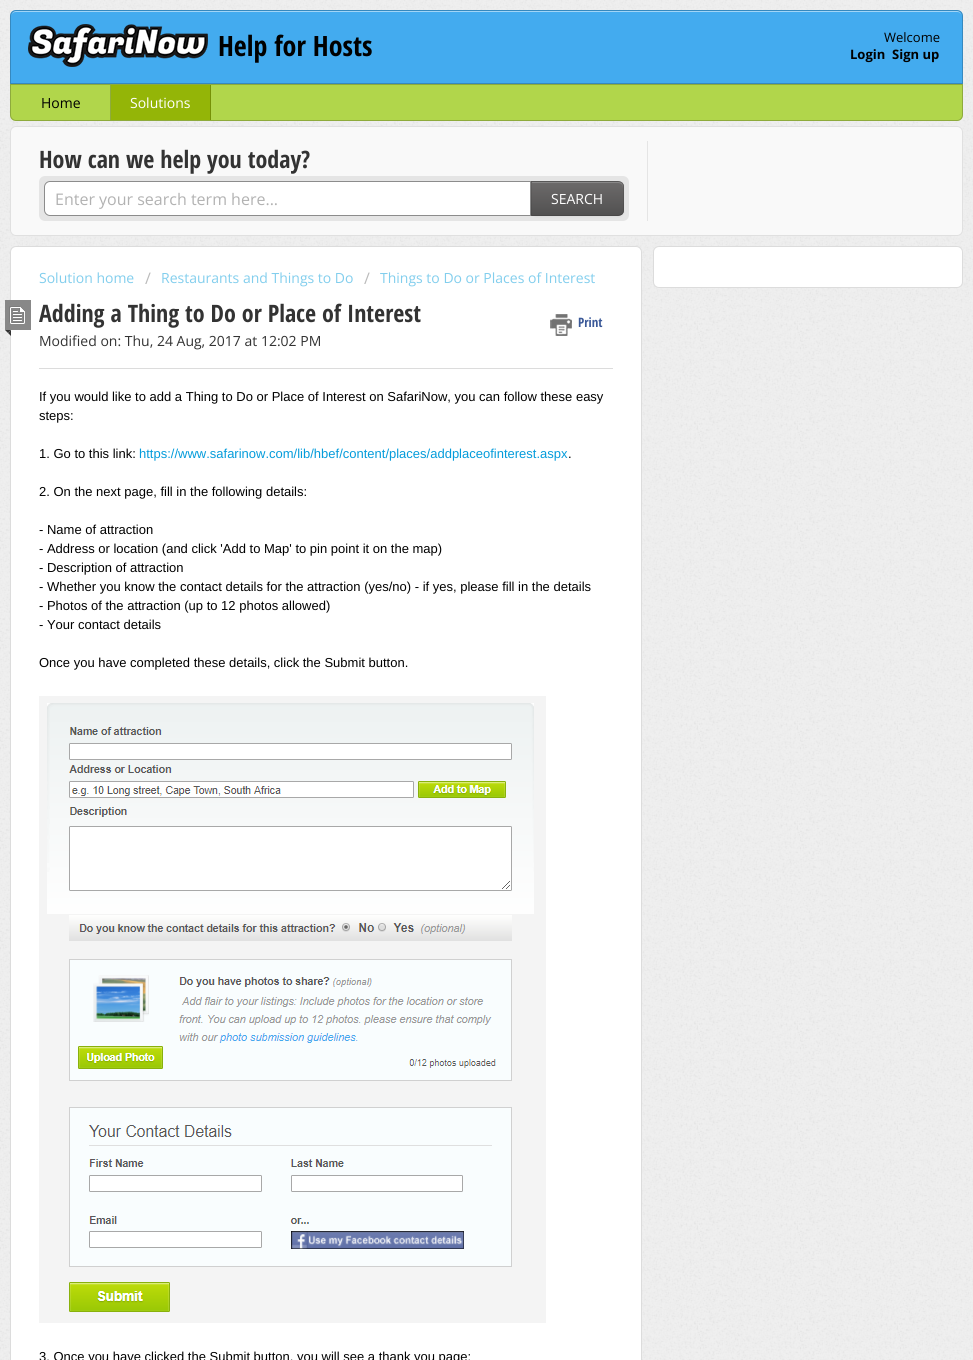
#include <cairo.h>
#include <math.h>
#include <stddef.h>


static void set_color(cairo_t *cr, unsigned color) {
    cairo_set_source_rgb(cr, (color >> 16) / 255.0, (color >> 8 & 255) / 255.0, (color & 255) / 255.0);
}

static void draw_text(cairo_t *cr, double x, double y, const char *s, const char *family, double size, int italic, int bold, unsigned color) {
    cairo_select_font_face(cr, family, italic ? CAIRO_FONT_SLANT_ITALIC : CAIRO_FONT_SLANT_NORMAL,
        bold ? CAIRO_FONT_WEIGHT_BOLD : CAIRO_FONT_WEIGHT_NORMAL);
    cairo_set_font_size(cr, size);
    set_color(cr, color);
    cairo_move_to(cr, x, y);
    cairo_show_text(cr, s);
}

static void fill_rect(cairo_t *cr, double x, double y, double w, double h, unsigned color) {
    set_color(cr, color);
    cairo_rectangle(cr, x, y, w, h);
    cairo_fill(cr);
}

static void rounded_rect(cairo_t *cr, double x, double y, double w, double h, double r) {
    cairo_new_sub_path(cr);
    cairo_arc(cr, x + w - r, y + h - r, r, 0, M_PI / 2);
    cairo_arc(cr, x + r, y + h - r, r, M_PI / 2, M_PI);
    cairo_arc(cr, x + r, y + r, r, M_PI, 1.5 * M_PI);
    cairo_arc(cr, x + w - r, y + r, r, 1.5 * M_PI, 2 * M_PI);
    cairo_close_path(cr);
}

static void draw_shadow(cairo_t *cr, double x, double y, double w, double h, double r, double blur, double alpha) {
    cairo_push_group_with_content(cr, CAIRO_CONTENT_ALPHA);
    cairo_set_operator(cr, CAIRO_OPERATOR_SOURCE);
    for (int i = 15; i >= -15 && fmin(w, h) + blur * i / 3 > 0; i -= 2) {
        double e = blur * i / 6;
        cairo_set_source_rgba(cr, 0, 0, 0, alpha * erfc((i - 1) / 8.5) / 2);
        rounded_rect(cr, x - e, y - e, w + 2 * e, h + 2 * e, fmax(0, fmin(r + e + blur * .6, fmin(w, h) / 2 + e)));
        cairo_fill(cr);
    }
    cairo_pattern_t *soft = cairo_pop_group(cr);
    cairo_mask(cr, soft);
    cairo_pattern_destroy(soft);
}

static void draw_image(cairo_t *cr, const char *path, double x, double y, double w, double h) {
    cairo_surface_t *image = cairo_image_surface_create_from_png(path);
    cairo_save(cr);
    cairo_set_source_surface(cr, image, x, y);
    cairo_rectangle(cr, x, y, w, h);
    cairo_fill(cr);
    cairo_restore(cr);
    cairo_surface_destroy(image);
}

int main(void) {
    cairo_surface_t *surface = cairo_image_surface_create(CAIRO_FORMAT_RGB24, 973, 1360);
    cairo_t *cr = cairo_create(surface);
    cairo_font_options_t *options = cairo_font_options_create();
    cairo_font_options_set_hint_metrics(options, CAIRO_HINT_METRICS_OFF);
    cairo_font_options_set_hint_style(options, CAIRO_HINT_STYLE_NONE);
    cairo_set_font_options(cr, options);
    cairo_set_miter_limit(cr, 4);
    cairo_pattern_t *gradient;
    set_color(cr, 0xEFEFEF);
    cairo_paint(cr);
    draw_image(cr, "assets/img1.png", 0, 0, 973, 1360);
    set_color(cr, 0x43ABEF);
    cairo_new_path(cr);
    cairo_move_to(cr, 16, 10);
    cairo_line_to(cr, 957, 10);
    cairo_curve_to(cr, 960.5, 10, 963, 12.5, 963, 16);
    cairo_line_to(cr, 963, 84);
    cairo_line_to(cr, 10, 84);
    cairo_line_to(cr, 10, 16);
    cairo_curve_to(cr, 10, 12.5, 12.5, 10, 16, 10);
    cairo_close_path(cr);
    cairo_fill(cr);
    set_color(cr, 0xA1D5F7);
    cairo_new_path(cr);
    cairo_move_to(cr, 16, 12);
    cairo_line_to(cr, 957, 12);
    cairo_curve_to(cr, 960, 12, 962, 14, 962, 17);
    cairo_curve_to(cr, 962, 14, 960, 11, 957, 11);
    cairo_line_to(cr, 16, 11);
    cairo_curve_to(cr, 13, 11, 11, 14, 11, 17);
    cairo_curve_to(cr, 11, 14, 13, 12, 16, 12);
    cairo_close_path(cr);
    cairo_fill(cr);
    cairo_new_path(cr);
    cairo_move_to(cr, 16, 10.5);
    cairo_line_to(cr, 957, 10.5);
    cairo_curve_to(cr, 960, 10.5, 962.5, 13, 962.5, 16);
    cairo_line_to(cr, 962.5, 83.5);
    cairo_line_to(cr, 10.5, 83.5);
    cairo_line_to(cr, 10.5, 16);
    cairo_curve_to(cr, 10.5, 13, 13, 10.5, 16, 10.5);
    cairo_close_path(cr);
    cairo_set_source_rgba(cr, 0, 0, 0, 0.2);
    cairo_set_line_width(cr, 1);
    cairo_stroke(cr);
    draw_image(cr, "assets/img2.png", 28, 24, 180, 43);
    draw_text(cr, 218, 56, "Help for Hosts", "Open Sans Condensed", 28, 0, 1, 0x000000);
    draw_text(cr, 884, 42, "Welcome", "Open Sans", 13, 0, 0, 0x000000);
    draw_text(cr, 850, 59, "Login", "Open Sans", 13, 0, 1, 0x000000);
    draw_text(cr, 892, 59, "Sign up", "Open Sans", 13, 0, 1, 0x000000);
    set_color(cr, 0xB1D64B);
    cairo_new_path(cr);
    cairo_move_to(cr, 10, 84);
    cairo_line_to(cr, 963, 84);
    cairo_line_to(cr, 963, 115);
    cairo_curve_to(cr, 963, 118.5, 960.5, 121, 957, 121);
    cairo_line_to(cr, 16, 121);
    cairo_curve_to(cr, 12.5, 121, 10, 118.5, 10, 115);
    cairo_close_path(cr);
    cairo_fill(cr);
    cairo_new_path(cr);
    cairo_move_to(cr, 10.5, 84.5);
    cairo_line_to(cr, 962.5, 84.5);
    cairo_line_to(cr, 962.5, 115);
    cairo_curve_to(cr, 962.5, 118, 960, 120.5, 957, 120.5);
    cairo_line_to(cr, 16, 120.5);
    cairo_curve_to(cr, 13, 120.5, 10.5, 118, 10.5, 115);
    cairo_close_path(cr);
    cairo_set_source_rgba(cr, 0, 0, 0, 0.2);
    cairo_stroke(cr);
    fill_rect(cr, 110, 85, 1, 35, 0x8EAB3C);
    draw_text(cr, 41, 108, "Home", "Open Sans", 14, 0, 0, 0x000000);
    fill_rect(cr, 111, 85, 99, 35, 0x94B507);
    fill_rect(cr, 210, 85, 1, 35, 0x769106);
    draw_text(cr, 130, 108, "Solutions", "Open Sans", 14, 0, 0, 0xFFFFFF);
    set_color(cr, 0xF9F9F9);
    rounded_rect(cr, 10.5, 126.5, 952, 109, 5.5);
    cairo_fill_preserve(cr);
    set_color(cr, 0xE0E0E0);
    cairo_stroke(cr);
    fill_rect(cr, 647, 141, 1, 80, 0xE5E5E5);
    draw_text(cr, 39, 168, "How can we help you today?", "Open Sans Condensed", 24, 0, 1, 0x333333);
    set_color(cr, 0xE5E5E5);
    rounded_rect(cr, 39, 176, 590, 45, 6);
    cairo_fill(cr);
    set_color(cr, 0xFFFFFF);
    cairo_new_path(cr);
    cairo_move_to(cr, 50, 181.5);
    cairo_line_to(cr, 530.5, 181.5);
    cairo_line_to(cr, 530.5, 215.5);
    cairo_line_to(cr, 50, 215.5);
    cairo_curve_to(cr, 47, 215.5, 44.5, 213, 44.5, 210);
    cairo_line_to(cr, 44.5, 187);
    cairo_curve_to(cr, 44.5, 184, 47, 181.5, 50, 181.5);
    cairo_close_path(cr);
    cairo_fill_preserve(cr);
    set_color(cr, 0x8C8C8C);
    cairo_stroke(cr);
    draw_text(cr, 55, 205, "Enter your search term here...", "Open Sans", 16, 0, 0, 0xB2B2B2);
    set_color(cr, 0x000000);
    draw_shadow(cr, 531, 182, 93, 35, 6, 1, 0.05);
    set_color(cr, 0x626060);
    cairo_new_path(cr);
    cairo_move_to(cr, 531, 181);
    cairo_line_to(cr, 618, 181);
    cairo_curve_to(cr, 621.5, 181, 624, 183.5, 624, 187);
    cairo_line_to(cr, 624, 210);
    cairo_curve_to(cr, 624, 213.5, 621.5, 216, 618, 216);
    cairo_line_to(cr, 531, 216);
    cairo_close_path(cr);
    cairo_fill(cr);
    cairo_save(cr);
    cairo_new_path(cr);
    cairo_move_to(cr, 531, 181);
    cairo_line_to(cr, 618, 181);
    cairo_curve_to(cr, 621.5, 181, 624, 183.5, 624, 187);
    cairo_line_to(cr, 624, 210);
    cairo_curve_to(cr, 624, 213.5, 621.5, 216, 618, 216);
    cairo_line_to(cr, 531, 216);
    cairo_close_path(cr);
    cairo_clip(cr);
    gradient = cairo_pattern_create_linear(578, 182, 578, 215);
    cairo_pattern_add_color_stop_rgba(gradient, 0, 0.424, 0.416, 0.416, 1);
    cairo_pattern_add_color_stop_rgba(gradient, 1, 0.322, 0.318, 0.318, 1);
    cairo_set_source(cr, gradient);
    cairo_pattern_destroy(gradient);
    cairo_rectangle(cr, 531, 182, 93, 33);
    cairo_fill(cr);
    cairo_restore(cr);
    set_color(cr, 0x898888);
    cairo_new_path(cr);
    cairo_move_to(cr, 532, 183);
    cairo_line_to(cr, 618, 183);
    cairo_curve_to(cr, 621, 183, 623, 185, 623, 188);
    cairo_line_to(cr, 623, 187);
    cairo_curve_to(cr, 623, 184, 621, 182, 618, 182);
    cairo_line_to(cr, 532, 182);
    cairo_close_path(cr);
    cairo_fill(cr);
    cairo_set_source_rgba(cr, 0, 0, 0, 0.1);
    cairo_new_path(cr);
    cairo_move_to(cr, 531, 181);
    cairo_line_to(cr, 532, 182);
    cairo_line_to(cr, 619, 182);
    cairo_line_to(cr, 622, 183);
    cairo_curve_to(cr, 621, 182, 620, 181, 618, 181);
    cairo_close_path(cr);
    cairo_fill(cr);
    cairo_new_path(cr);
    cairo_move_to(cr, 624, 210);
    cairo_line_to(cr, 624, 187);
    cairo_curve_to(cr, 624, 185.5, 623, 184, 622, 183);
    cairo_line_to(cr, 621.5, 183.5);
    cairo_curve_to(cr, 622.5, 184, 623, 185.5, 623, 187);
    cairo_line_to(cr, 623, 210);
    cairo_curve_to(cr, 623, 211.5, 622.5, 213, 621.5, 213.5);
    cairo_line_to(cr, 622, 214);
    cairo_curve_to(cr, 623, 213, 624, 211.5, 624, 210);
    cairo_close_path(cr);
    cairo_fill(cr);
    cairo_set_source_rgba(cr, 0, 0, 0, 0.25);
    cairo_new_path(cr);
    cairo_move_to(cr, 618, 216);
    cairo_curve_to(cr, 620, 216, 621, 215, 622, 214);
    cairo_line_to(cr, 619, 215);
    cairo_line_to(cr, 532, 215);
    cairo_line_to(cr, 531, 216);
    cairo_close_path(cr);
    cairo_fill(cr);
    cairo_set_source_rgba(cr, 0, 0, 0, 0.1);
    cairo_new_path(cr);
    cairo_move_to(cr, 531, 181);
    cairo_line_to(cr, 531, 216);
    cairo_line_to(cr, 532, 215);
    cairo_line_to(cr, 532, 182);
    cairo_close_path(cr);
    cairo_fill(cr);
    draw_text(cr, 551, 204, "SEARCH", "Open Sans", 14, 0, 0, 0xFFFFFF);
    rounded_rect(cr, 653.5, 246.5, 309, 41, 5.5);
    cairo_fill_preserve(cr);
    set_color(cr, 0xDCDCDC);
    cairo_stroke(cr);
    set_color(cr, 0xFFFFFF);
    rounded_rect(cr, 10.5, 246.5, 631, 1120, 5.5);
    cairo_fill_preserve(cr);
    set_color(cr, 0xDCDCDC);
    cairo_stroke(cr);
    draw_text(cr, 39, 283, "Solution home", "Open Sans", 14, 0, 0, 0x82CEED);
    draw_text(cr, 145, 284, "/", "Open Sans", 16, 0, 0, 0xBBBBBB);
    draw_text(cr, 161, 283, "Restaurants and Things to Do", "Open Sans", 14, 0, 0, 0x82CEED);
    draw_text(cr, 364, 284, "/", "Open Sans", 16, 0, 0, 0xBBBBBB);
    draw_text(cr, 380, 283, "Things to Do or Places of Interest", "Open Sans", 14, 0, 0, 0x82CEED);
    fill_rect(cr, 5, 300, 26, 30, 0x888888);
    draw_image(cr, "assets/img3.png", 9, 306, 16, 18);
    set_color(cr, 0x333333);
    cairo_new_path(cr);
    cairo_move_to(cr, 5, 330);
    cairo_line_to(cr, 11, 330);
    cairo_line_to(cr, 8, 333);
    cairo_close_path(cr);
    cairo_fill(cr);
    cairo_new_path(cr);
    cairo_move_to(cr, 11, 330);
    cairo_line_to(cr, 11, 336);
    cairo_line_to(cr, 8, 333);
    cairo_close_path(cr);
    cairo_fill(cr);
    draw_text(cr, 39, 322, "Adding a Thing to Do or Place of Interest", "Open Sans Condensed", 24, 0, 1, 0x333333);
    draw_image(cr, "assets/img4.png", 550, 314, 22, 22);
    draw_text(cr, 578, 327, "Print", "Open Sans Condensed", 13, 0, 1, 0x3B5998);
    draw_text(cr, 39, 346, "Modified on: Thu, 24 Aug, 2017 at 12:02 PM", "Open Sans", 14, 0, 0, 0x333333);
    fill_rect(cr, 39, 368, 574, 1, 0xDCDCDC);
    draw_text(cr, 39, 401, "If you would like to add a Thing to Do or Place of Interest on SafariNow, you can follow these easy", "Liberation Sans", 13, 0, 0, 0x000000);
    draw_text(cr, 39, 420, "steps:", "Liberation Sans", 13, 0, 0, 0x000000);
    draw_text(cr, 39, 458, "1. Go to this link:", "Liberation Sans", 13, 0, 0, 0x000000);
    draw_text(cr, 139, 458, "https://www.safarinow.com/lib/hbef/content/places/addplaceofinterest.aspx", "Liberation Sans", 13, 0, 0, 0x049CDB);
    draw_text(cr, 568, 458, ".", "Liberation Sans", 13, 0, 0, 0x000000);
    draw_text(cr, 39, 496, "2. On the next page, fill in the following details:", "Liberation Sans", 13, 0, 0, 0x000000);
    draw_text(cr, 39, 534, "- Name of attraction", "Liberation Sans", 13, 0, 0, 0x000000);
    draw_text(cr, 39, 553, "- Address or location (and click 'Add to Map' to pin point it on the map)", "Liberation Sans", 13, 0, 0, 0x000000);
    draw_text(cr, 39, 572, "- Description of attraction", "Liberation Sans", 13, 0, 0, 0x000000);
    draw_text(cr, 39, 591, "- Whether you know the contact details for the attraction (yes/no) - if yes, please fill in the details", "Liberation Sans", 13, 0, 0, 0x000000);
    draw_text(cr, 39, 610, "- Photos of the attraction (up to 12 photos allowed)", "Liberation Sans", 13, 0, 0, 0x000000);
    draw_text(cr, 39, 629, "- Your contact details", "Liberation Sans", 13, 0, 0, 0x000000);
    draw_text(cr, 39, 667, "Once you have completed these details, click the Submit button.", "Liberation Sans", 13, 0, 0, 0x000000);
    draw_image(cr, "assets/img5.png", 39, 696, 507, 627);
    draw_text(cr, 39, 1361, "3. Once you have clicked the Submit button, you will see a thank you page:", "Liberation Sans", 13, 0, 0, 0x000000);
    cairo_surface_write_to_png(surface, "output.png");
    cairo_font_options_destroy(options);
    cairo_destroy(cr);
    cairo_surface_destroy(surface);
    return 0;
}
